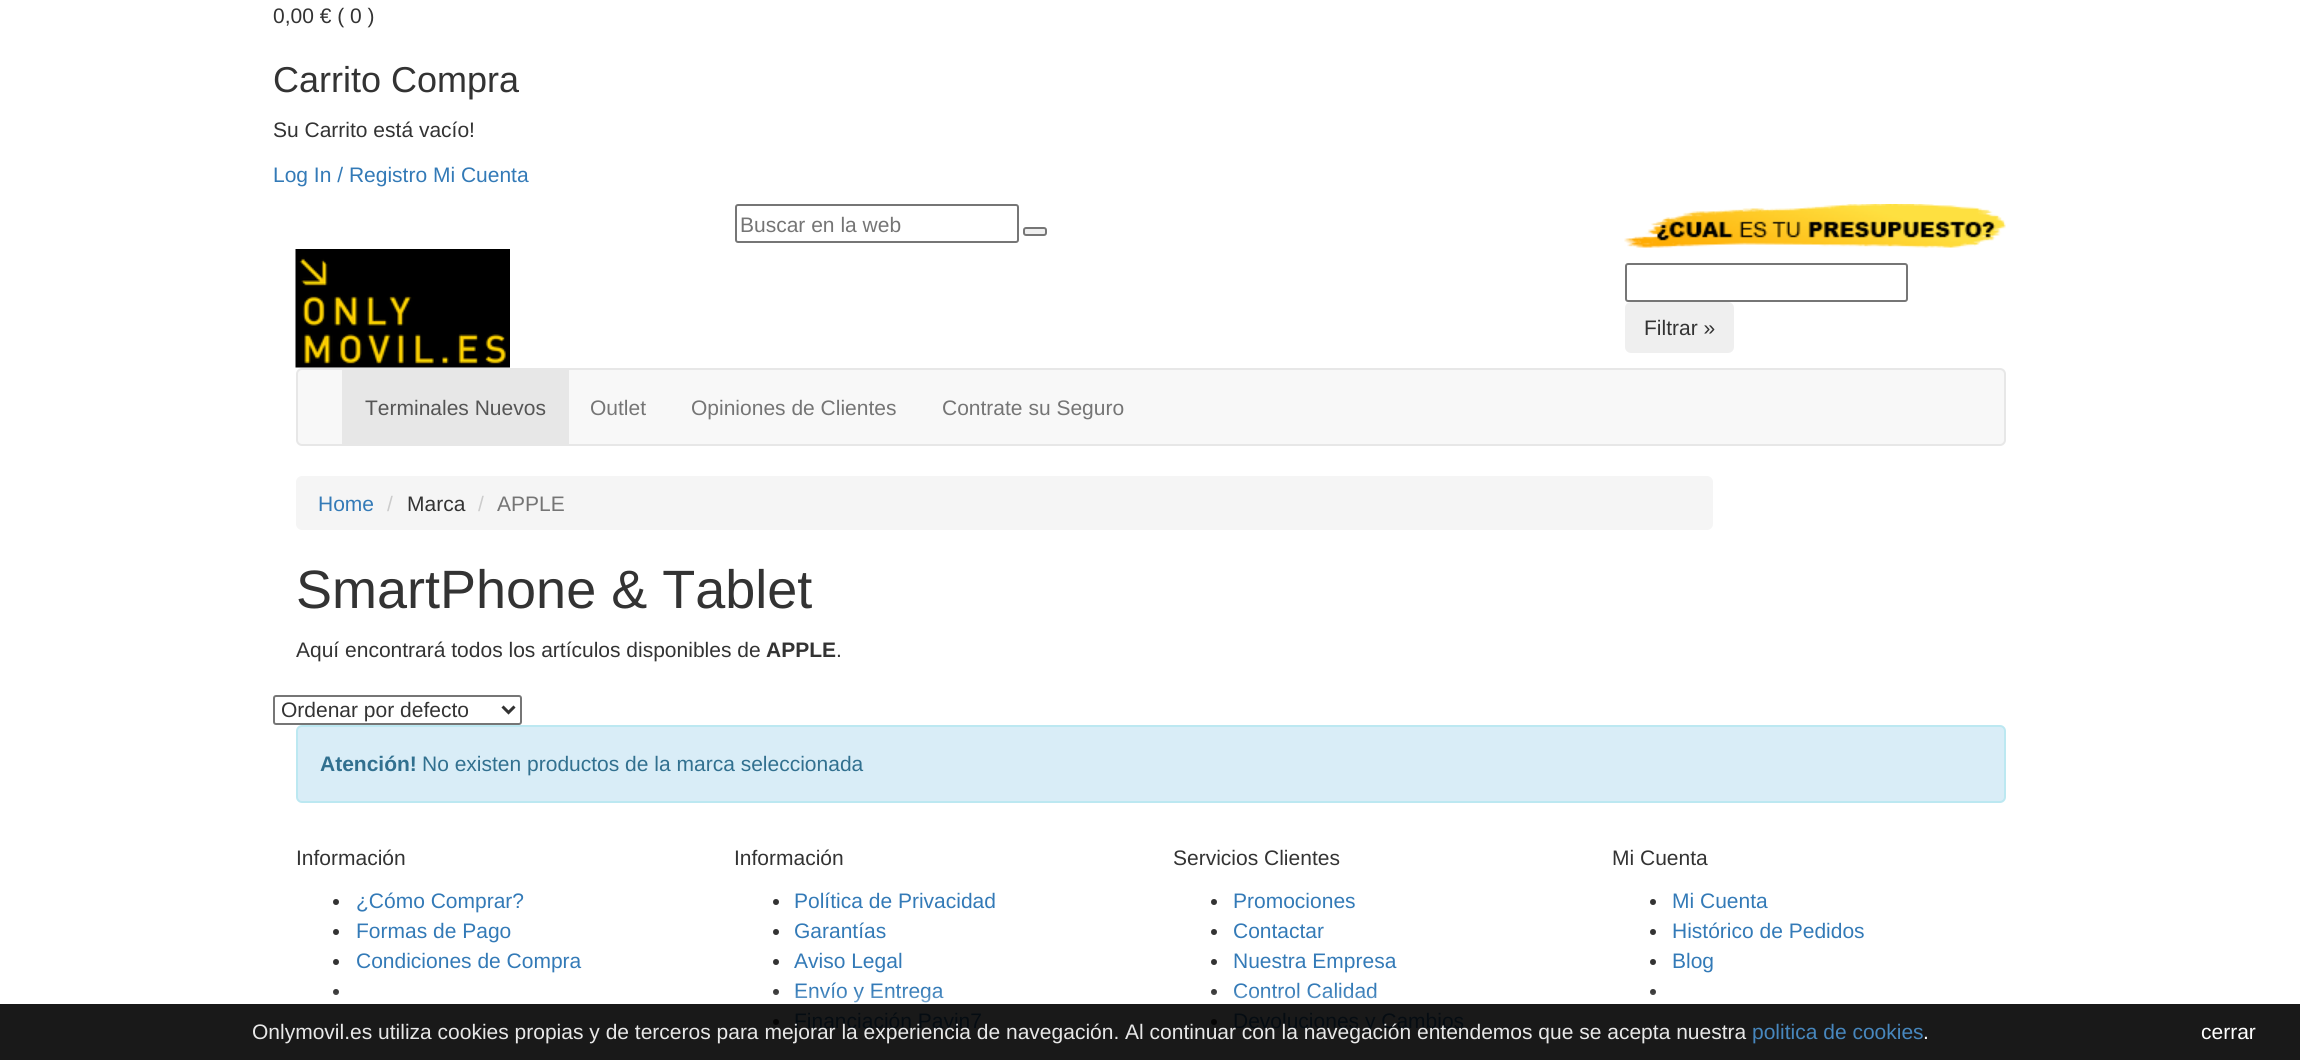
#include <cairo.h>
#include <math.h>
#include <stddef.h>


static void set_color(cairo_t *cr, unsigned color) {
    cairo_set_source_rgb(cr, (color >> 16) / 255.0, (color >> 8 & 255) / 255.0, (color & 255) / 255.0);
}

static void draw_text(cairo_t *cr, double x, double y, const char *s, const char *family, double size, int italic, int bold, unsigned color) {
    cairo_select_font_face(cr, family, italic ? CAIRO_FONT_SLANT_ITALIC : CAIRO_FONT_SLANT_NORMAL,
        bold ? CAIRO_FONT_WEIGHT_BOLD : CAIRO_FONT_WEIGHT_NORMAL);
    cairo_set_font_size(cr, size);
    set_color(cr, color);
    cairo_move_to(cr, x, y);
    cairo_show_text(cr, s);
}

static void fill_rect(cairo_t *cr, double x, double y, double w, double h, unsigned color) {
    set_color(cr, color);
    cairo_rectangle(cr, x, y, w, h);
    cairo_fill(cr);
}

static void rounded_rect(cairo_t *cr, double x, double y, double w, double h, double r) {
    cairo_new_sub_path(cr);
    cairo_arc(cr, x + w - r, y + h - r, r, 0, M_PI / 2);
    cairo_arc(cr, x + r, y + h - r, r, M_PI / 2, M_PI);
    cairo_arc(cr, x + r, y + r, r, M_PI, 1.5 * M_PI);
    cairo_arc(cr, x + w - r, y + r, r, 1.5 * M_PI, 2 * M_PI);
    cairo_close_path(cr);
}

static void draw_shadow(cairo_t *cr, double x, double y, double w, double h, double r, double blur, double alpha) {
    cairo_push_group_with_content(cr, CAIRO_CONTENT_ALPHA);
    cairo_set_operator(cr, CAIRO_OPERATOR_SOURCE);
    for (int i = 15; i >= -15 && fmin(w, h) + blur * i / 3 > 0; i -= 2) {
        double e = blur * i / 6;
        cairo_set_source_rgba(cr, 0, 0, 0, alpha * erfc((i - 1) / 8.5) / 2);
        rounded_rect(cr, x - e, y - e, w + 2 * e, h + 2 * e, fmax(0, fmin(r + e + blur * .6, fmin(w, h) / 2 + e)));
        cairo_fill(cr);
    }
    cairo_pattern_t *soft = cairo_pop_group(cr);
    cairo_mask(cr, soft);
    cairo_pattern_destroy(soft);
}

static void draw_image(cairo_t *cr, const char *path, double x, double y, double w, double h) {
    cairo_surface_t *image = cairo_image_surface_create_from_png(path);
    cairo_save(cr);
    cairo_set_source_surface(cr, image, x, y);
    cairo_rectangle(cr, x, y, w, h);
    cairo_fill(cr);
    cairo_restore(cr);
    cairo_surface_destroy(image);
}

int main(void) {
    cairo_surface_t *surface = cairo_image_surface_create(CAIRO_FORMAT_RGB24, 2300, 1060);
    cairo_t *cr = cairo_create(surface);
    cairo_font_options_t *options = cairo_font_options_create();
    cairo_font_options_set_hint_metrics(options, CAIRO_HINT_METRICS_OFF);
    cairo_font_options_set_hint_style(options, CAIRO_HINT_STYLE_NONE);
    cairo_set_font_options(cr, options);
    cairo_set_miter_limit(cr, 4);
    set_color(cr, 0xFFFFFF);
    cairo_paint(cr);
    fill_rect(cr, 0, 1004, 2300, 56, 0x191919);
    draw_text(cr, 273, 23, "0,00 € ( 0 )", "Liberation Sans", 21, 0, 0, 0x333333);
    draw_text(cr, 273, 92, "Carrito Compra", "Liberation Sans", 36, 0, 0, 0x333333);
    draw_text(cr, 273, 137, "Su Carrito está vacío!", "Liberation Sans", 21, 0, 0, 0x333333);
    draw_text(cr, 273, 182, "Log In / Registro Mi Cuenta", "Liberation Sans", 21, 0, 0, 0x337AB7);
    rounded_rect(cr, 736, 205, 282, 37, 2);
    set_color(cr, 0x767676);
    cairo_stroke(cr);
    draw_text(cr, 740, 232, "Buscar en la web", "Liberation Sans", 21, 0, 0, 0x757575);
    set_color(cr, 0xEFEFEF);
    rounded_rect(cr, 1024, 228, 22, 7, 2);
    cairo_fill_preserve(cr);
    set_color(cr, 0x767676);
    cairo_stroke(cr);
    draw_image(cr, "assets/img1.png", 295, 249, 215, 119);
    draw_image(cr, "assets/img2.png", 1624, 204, 382, 44);
    rounded_rect(cr, 1626, 264, 281, 37, 2);
    cairo_stroke(cr);
    set_color(cr, 0xEFEFEF);
    rounded_rect(cr, 1625, 302, 109, 51, 6);
    cairo_fill(cr);
    draw_text(cr, 1644, 335, "Filtrar »", "Liberation Sans", 21, 0, 0, 0x333333);
    set_color(cr, 0xF8F8F8);
    rounded_rect(cr, 297, 369, 1708, 76, 5);
    cairo_fill_preserve(cr);
    set_color(cr, 0xE7E7E7);
    cairo_stroke(cr);
    fill_rect(cr, 342, 370, 227, 74, 0xE7E7E7);
    draw_text(cr, 365, 415, "Terminales Nuevos", "Liberation Sans", 21, 0, 0, 0x555555);
    draw_text(cr, 590, 415, "Outlet", "Liberation Sans", 21, 0, 0, 0x757575);
    draw_text(cr, 691, 415, "Opiniones de Clientes", "Liberation Sans", 21, 0, 0, 0x757575);
    draw_text(cr, 942, 415, "Contrate su Seguro", "Liberation Sans", 21, 0, 0, 0x757575);
    set_color(cr, 0xF5F5F5);
    rounded_rect(cr, 296, 476, 1417, 54, 6);
    cairo_fill(cr);
    draw_text(cr, 318, 511, "Home", "Liberation Sans", 21, 0, 0, 0x337AB7);
    draw_text(cr, 387, 511, "/", "Liberation Sans", 21, 0, 0, 0xCCCCCC);
    draw_text(cr, 407, 511, "Marca", "Liberation Sans", 21, 0, 0, 0x333333);
    draw_text(cr, 478, 511, "/", "Liberation Sans", 21, 0, 0, 0xCCCCCC);
    draw_text(cr, 497, 511, "APPLE", "Liberation Sans", 21, 0, 0, 0x757575);
    draw_text(cr, 296, 608, "SmartPhone & Tablet", "Liberation Sans", 54, 0, 0, 0x333333);
    draw_text(cr, 296, 657, "Aquí encontrará todos los artículos disponibles de", "Liberation Sans", 21, 0, 0, 0x333333);
    draw_text(cr, 766, 657, "APPLE", "Liberation Sans", 21, 0, 1, 0x333333);
    draw_text(cr, 836, 657, ".", "Liberation Sans", 21, 0, 0, 0x333333);
    rounded_rect(cr, 274, 696, 247, 28, 2);
    set_color(cr, 0x767676);
    cairo_stroke(cr);
    cairo_new_path(cr);
    cairo_move_to(cr, 502.5, 706.5);
    cairo_line_to(cr, 508.5, 712.5);
    cairo_line_to(cr, 514.5, 706.5);
    set_color(cr, 0x333333);
    cairo_set_line_width(cr, 3);
    cairo_stroke(cr);
    draw_text(cr, 281, 717, "Ordenar por defecto", "Liberation Sans", 21, 0, 0, 0x333333);
    set_color(cr, 0xD9EDF7);
    rounded_rect(cr, 297, 726, 1708, 76, 5);
    cairo_fill_preserve(cr);
    set_color(cr, 0xBCE8F1);
    cairo_set_line_width(cr, 2);
    cairo_stroke(cr);
    draw_text(cr, 320, 771, "Atención!", "Liberation Sans", 21, 0, 1, 0x31708F);
    draw_text(cr, 422, 771, "No existen productos de la marca seleccionada", "Liberation Sans", 21, 0, 0, 0x31708F);
    draw_text(cr, 296, 865, "Información", "Liberation Sans", 21, 0, 0, 0x333333);
    cairo_new_path(cr);
    cairo_arc(cr, 336, 902, 3, 0, 2 * M_PI);
    cairo_fill(cr);
    draw_text(cr, 356, 908, "¿Cómo Comprar?", "Liberation Sans", 21, 0, 0, 0x337AB7);
    set_color(cr, 0x333333);
    cairo_new_path(cr);
    cairo_arc(cr, 336, 932, 3, 0, 2 * M_PI);
    cairo_fill(cr);
    draw_text(cr, 356, 938, "Formas de Pago", "Liberation Sans", 21, 0, 0, 0x337AB7);
    set_color(cr, 0x333333);
    cairo_new_path(cr);
    cairo_arc(cr, 336, 962, 3, 0, 2 * M_PI);
    cairo_fill(cr);
    draw_text(cr, 356, 968, "Condiciones de Compra", "Liberation Sans", 21, 0, 0, 0x337AB7);
    set_color(cr, 0x333333);
    cairo_new_path(cr);
    cairo_arc(cr, 336, 992, 3, 0, 2 * M_PI);
    cairo_fill(cr);
    draw_text(cr, 734, 865, "Información", "Liberation Sans", 21, 0, 0, 0x333333);
    cairo_new_path(cr);
    cairo_arc(cr, 776, 902, 3, 0, 2 * M_PI);
    cairo_fill(cr);
    draw_text(cr, 794, 908, "Política de Privacidad", "Liberation Sans", 21, 0, 0, 0x337AB7);
    set_color(cr, 0x333333);
    cairo_new_path(cr);
    cairo_arc(cr, 776, 932, 3, 0, 2 * M_PI);
    cairo_fill(cr);
    draw_text(cr, 794, 938, "Garantías", "Liberation Sans", 21, 0, 0, 0x337AB7);
    set_color(cr, 0x333333);
    cairo_new_path(cr);
    cairo_arc(cr, 776, 962, 3, 0, 2 * M_PI);
    cairo_fill(cr);
    draw_text(cr, 794, 968, "Aviso Legal", "Liberation Sans", 21, 0, 0, 0x337AB7);
    set_color(cr, 0x333333);
    cairo_new_path(cr);
    cairo_arc(cr, 776, 992, 3, 0, 2 * M_PI);
    cairo_fill(cr);
    draw_text(cr, 794, 998, "Envío y Entrega", "Liberation Sans", 21, 0, 0, 0x337AB7);
    set_color(cr, 0x050505);
    cairo_new_path(cr);
    cairo_arc(cr, 776, 1022, 3, 0, 2 * M_PI);
    cairo_fill(cr);
    draw_text(cr, 794, 1028, "Financiación Payin7", "Liberation Sans", 21, 0, 0, 0x050C12);
    draw_text(cr, 1173, 865, "Servicios Clientes", "Liberation Sans", 21, 0, 0, 0x333333);
    cairo_new_path(cr);
    cairo_arc(cr, 1214, 902, 3, 0, 2 * M_PI);
    cairo_fill(cr);
    draw_text(cr, 1233, 908, "Promociones", "Liberation Sans", 21, 0, 0, 0x337AB7);
    set_color(cr, 0x333333);
    cairo_new_path(cr);
    cairo_arc(cr, 1214, 932, 3, 0, 2 * M_PI);
    cairo_fill(cr);
    draw_text(cr, 1233, 938, "Contactar", "Liberation Sans", 21, 0, 0, 0x337AB7);
    set_color(cr, 0x333333);
    cairo_new_path(cr);
    cairo_arc(cr, 1214, 962, 3, 0, 2 * M_PI);
    cairo_fill(cr);
    draw_text(cr, 1233, 968, "Nuestra Empresa", "Liberation Sans", 21, 0, 0, 0x337AB7);
    set_color(cr, 0x333333);
    cairo_new_path(cr);
    cairo_arc(cr, 1214, 992, 3, 0, 2 * M_PI);
    cairo_fill(cr);
    draw_text(cr, 1233, 998, "Control Calidad", "Liberation Sans", 21, 0, 0, 0x337AB7);
    set_color(cr, 0x050505);
    cairo_new_path(cr);
    cairo_arc(cr, 1214, 1022, 3, 0, 2 * M_PI);
    cairo_fill(cr);
    draw_text(cr, 1233, 1028, "Devoluciones y Cambios", "Liberation Sans", 21, 0, 0, 0x050C12);
    draw_text(cr, 1612, 865, "Mi Cuenta", "Liberation Sans", 21, 0, 0, 0x333333);
    cairo_new_path(cr);
    cairo_arc(cr, 1653, 902, 3, 0, 2 * M_PI);
    cairo_fill(cr);
    draw_text(cr, 1672, 908, "Mi Cuenta", "Liberation Sans", 21, 0, 0, 0x337AB7);
    set_color(cr, 0x333333);
    cairo_new_path(cr);
    cairo_arc(cr, 1653, 932, 3, 0, 2 * M_PI);
    cairo_fill(cr);
    draw_text(cr, 1672, 938, "Histórico de Pedidos", "Liberation Sans", 21, 0, 0, 0x337AB7);
    set_color(cr, 0x333333);
    cairo_new_path(cr);
    cairo_arc(cr, 1653, 962, 3, 0, 2 * M_PI);
    cairo_fill(cr);
    draw_text(cr, 1672, 968, "Blog", "Liberation Sans", 21, 0, 0, 0x337AB7);
    set_color(cr, 0x333333);
    cairo_new_path(cr);
    cairo_arc(cr, 1653, 992, 3, 0, 2 * M_PI);
    cairo_fill(cr);
    cairo_save(cr);
    cairo_rectangle(cr, 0, 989, 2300, 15);
    cairo_clip(cr);
    set_color(cr, 0xFFFFFF);
    draw_shadow(cr, 0, 1004, 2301, 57, 0, 7.5, 0.9);
    cairo_restore(cr);
    draw_text(cr, 252, 1039, "Onlymovil.es utiliza cookies propias y de terceros para mejorar la experiencia de navegación. Al continuar con la navegación entendemos que se acepta nuestra", "Liberation Sans", 21, 0, 0, 0xE8E8E8);
    draw_text(cr, 1752, 1039, "politica de cookies", "Liberation Sans", 21, 0, 0, 0x4787BE);
    draw_text(cr, 1923, 1039, ".", "Liberation Sans", 21, 0, 0, 0xFFFFFF);
    draw_text(cr, 2201, 1039, "cerrar", "Liberation Sans", 21, 0, 0, 0xFFFFFF);
    cairo_surface_write_to_png(surface, "output.png");
    cairo_font_options_destroy(options);
    cairo_destroy(cr);
    cairo_surface_destroy(surface);
    return 0;
}
